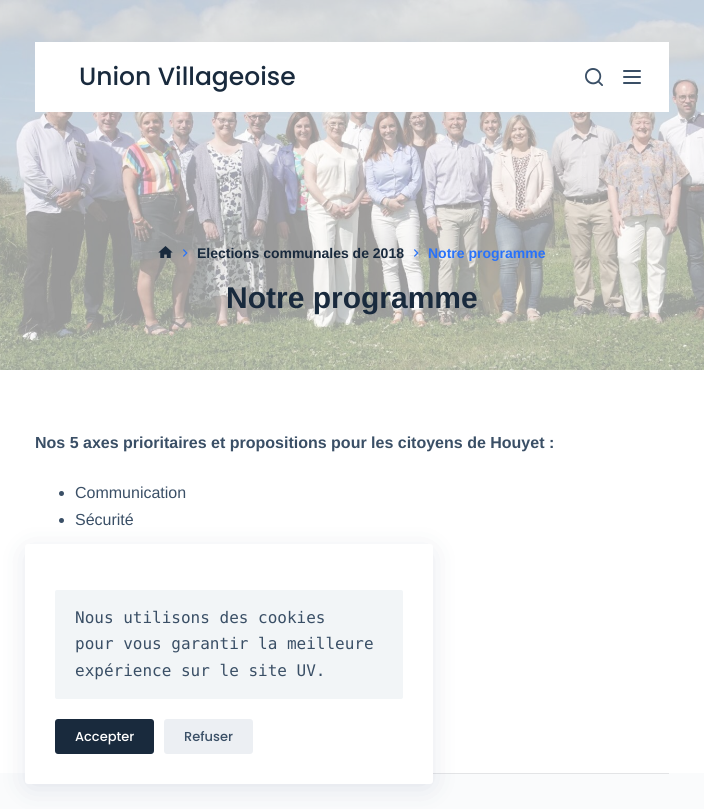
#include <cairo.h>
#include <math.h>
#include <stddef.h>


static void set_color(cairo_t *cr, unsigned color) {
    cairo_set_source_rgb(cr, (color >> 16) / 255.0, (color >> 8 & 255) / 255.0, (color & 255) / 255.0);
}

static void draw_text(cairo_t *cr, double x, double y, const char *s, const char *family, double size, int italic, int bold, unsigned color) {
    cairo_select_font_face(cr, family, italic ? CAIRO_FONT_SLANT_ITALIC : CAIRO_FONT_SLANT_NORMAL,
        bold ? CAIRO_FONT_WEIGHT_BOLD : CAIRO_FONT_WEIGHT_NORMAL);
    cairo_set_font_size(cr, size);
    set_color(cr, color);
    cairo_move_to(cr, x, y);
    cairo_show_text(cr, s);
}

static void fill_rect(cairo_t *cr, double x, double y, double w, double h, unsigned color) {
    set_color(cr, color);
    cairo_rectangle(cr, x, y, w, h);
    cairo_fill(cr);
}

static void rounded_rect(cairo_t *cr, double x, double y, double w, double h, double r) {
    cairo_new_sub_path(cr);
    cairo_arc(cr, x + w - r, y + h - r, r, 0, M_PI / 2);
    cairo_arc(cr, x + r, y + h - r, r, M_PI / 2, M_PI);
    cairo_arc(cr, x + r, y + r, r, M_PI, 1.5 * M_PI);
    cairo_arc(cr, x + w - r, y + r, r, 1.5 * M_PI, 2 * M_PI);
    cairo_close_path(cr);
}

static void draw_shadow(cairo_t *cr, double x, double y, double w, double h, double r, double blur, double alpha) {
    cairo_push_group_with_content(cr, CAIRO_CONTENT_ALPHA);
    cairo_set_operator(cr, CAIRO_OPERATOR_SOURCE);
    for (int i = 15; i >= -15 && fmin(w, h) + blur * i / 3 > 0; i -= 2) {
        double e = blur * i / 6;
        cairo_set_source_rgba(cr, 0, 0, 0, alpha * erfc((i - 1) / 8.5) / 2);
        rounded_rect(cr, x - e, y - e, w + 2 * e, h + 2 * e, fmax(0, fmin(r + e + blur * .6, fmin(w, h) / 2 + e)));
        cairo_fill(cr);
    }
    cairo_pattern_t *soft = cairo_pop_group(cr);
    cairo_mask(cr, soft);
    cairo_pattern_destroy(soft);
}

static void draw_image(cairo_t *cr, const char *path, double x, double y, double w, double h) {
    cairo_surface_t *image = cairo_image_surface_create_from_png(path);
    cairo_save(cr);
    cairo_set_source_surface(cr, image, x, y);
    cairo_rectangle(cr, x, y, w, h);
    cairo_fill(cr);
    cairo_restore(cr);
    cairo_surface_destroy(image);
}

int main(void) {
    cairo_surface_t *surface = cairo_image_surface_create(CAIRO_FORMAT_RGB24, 704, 809);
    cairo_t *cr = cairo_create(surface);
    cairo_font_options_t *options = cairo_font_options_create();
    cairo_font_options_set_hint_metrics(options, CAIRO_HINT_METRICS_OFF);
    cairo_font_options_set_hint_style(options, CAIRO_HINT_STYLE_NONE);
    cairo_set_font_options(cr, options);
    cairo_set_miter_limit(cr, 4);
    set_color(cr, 0xFFFFFF);
    cairo_paint(cr);
    draw_image(cr, "assets/img2.png", 0, 0, 704, 370);
    fill_rect(cr, 35, 42, 634, 70, 0xFFFFFF);
    draw_text(cr, 79, 85, "Union Villageoise", "Poppins Medium", 25, 0, 0, 0x192A3D);
    draw_image(cr, "assets/img1.png", 585, 68, 18, 18);
    set_color(cr, 0x3A4F66);
    rounded_rect(cr, 623, 70, 18, 2, 1);
    cairo_fill(cr);
    rounded_rect(cr, 623, 76, 18, 2, 1);
    cairo_fill(cr);
    rounded_rect(cr, 623, 82, 18, 2, 1);
    cairo_fill(cr);
    draw_image(cr, "assets/img3.png", 158, 246, 15, 12);
    draw_image(cr, "assets/img4.png", 183, 249, 5, 8);
    draw_text(cr, 197, 258, "Elections communales de 2018", "Liberation Sans", 14, 0, 1, 0x192A3D);
    draw_image(cr, "assets/img5.png", 414, 249, 5, 8);
    draw_text(cr, 428, 258, "Notre programme", "Liberation Sans", 14, 0, 1, 0x2872FA);
    draw_text(cr, 226, 308, "Notre programme", "Liberation Sans", 30, 0, 1, 0x192A3D);
    draw_text(cr, 35, 448, "Nos 5 axes prioritaires et propositions pour les citoyens de Houyet :", "Liberation Sans", 16, 0, 1, 0x3A4F66);
    cairo_new_path(cr);
    cairo_arc(cr, 61.5, 493.5, 2.5, 0, 2 * M_PI);
    cairo_fill(cr);
    draw_text(cr, 75, 498, "Communication", "Liberation Sans", 16, 0, 0, 0x3A4F66);
    cairo_new_path(cr);
    cairo_arc(cr, 61.5, 520.5, 2.5, 0, 2 * M_PI);
    cairo_fill(cr);
    draw_text(cr, 75, 525, "Sécurité", "Liberation Sans", 16, 0, 0, 0x3A4F66);
    fill_rect(cr, 0, 773, 704, 36, 0xFAFBFC);
    fill_rect(cr, 433, 773, 236, 1, 0xE3E4E6);
    set_color(cr, 0x223865);
    draw_shadow(cr, 30, 554, 398, 230, 0, 15, 0.15);
    set_color(cr, 0xFFFFFF);
    rounded_rect(cr, 25, 544, 408, 240, 3);
    cairo_fill(cr);
    set_color(cr, 0xF2F5F7);
    rounded_rect(cr, 55, 590, 348, 109, 2);
    cairo_fill(cr);
    draw_text(cr, 75, 623, "Nous utilisons des cookies", "DejaVu Sans Mono", 16, 0, 0, 0x3A4F66);
    draw_text(cr, 75, 649, "pour vous garantir la meilleure", "DejaVu Sans Mono", 16, 0, 0, 0x3A4F66);
    draw_text(cr, 75, 676, "expérience sur le site UV.", "DejaVu Sans Mono", 16, 0, 0, 0x3A4F66);
    set_color(cr, 0x192A3D);
    rounded_rect(cr, 55, 719, 99, 35, 3);
    cairo_fill(cr);
    draw_text(cr, 75, 741, "Accepter", "Poppins Medium", 13, 0, 0, 0xFFFFFF);
    set_color(cr, 0xECEFF3);
    rounded_rect(cr, 164, 719, 89, 35, 3);
    cairo_fill(cr);
    draw_text(cr, 184, 741, "Refuser", "Poppins Medium", 13, 0, 0, 0x3A4F66);
    cairo_surface_write_to_png(surface, "output.png");
    cairo_font_options_destroy(options);
    cairo_destroy(cr);
    cairo_surface_destroy(surface);
    return 0;
}
